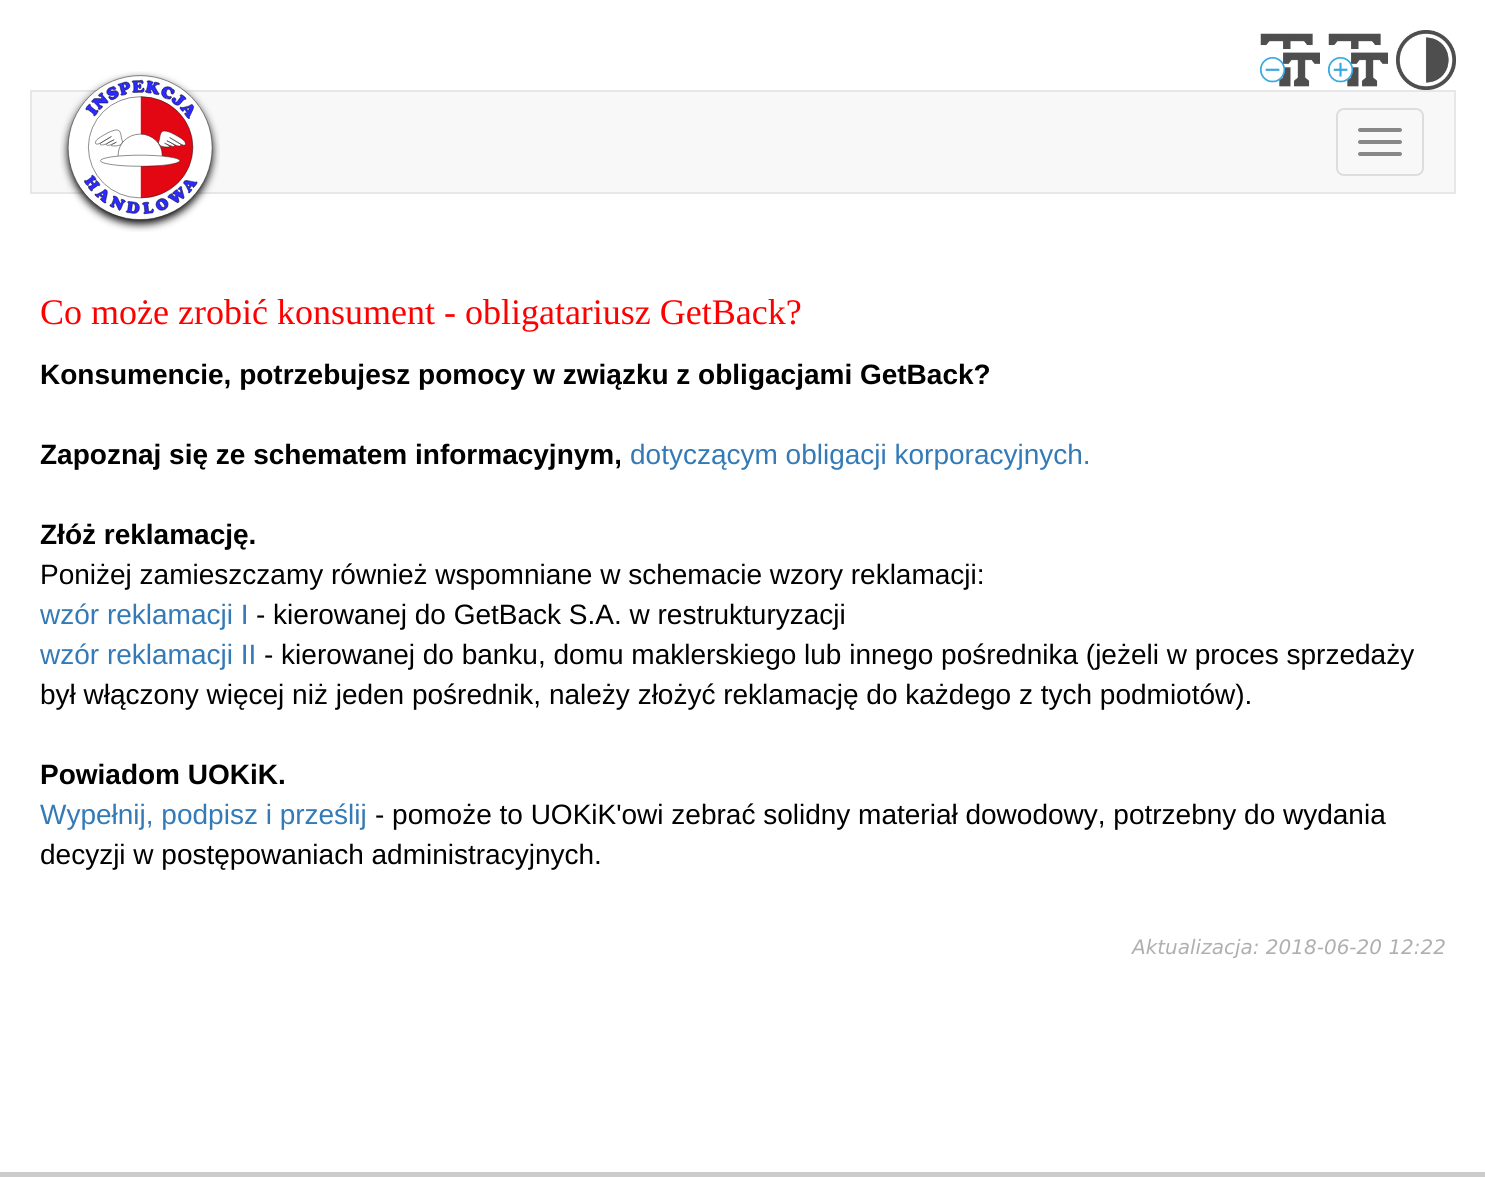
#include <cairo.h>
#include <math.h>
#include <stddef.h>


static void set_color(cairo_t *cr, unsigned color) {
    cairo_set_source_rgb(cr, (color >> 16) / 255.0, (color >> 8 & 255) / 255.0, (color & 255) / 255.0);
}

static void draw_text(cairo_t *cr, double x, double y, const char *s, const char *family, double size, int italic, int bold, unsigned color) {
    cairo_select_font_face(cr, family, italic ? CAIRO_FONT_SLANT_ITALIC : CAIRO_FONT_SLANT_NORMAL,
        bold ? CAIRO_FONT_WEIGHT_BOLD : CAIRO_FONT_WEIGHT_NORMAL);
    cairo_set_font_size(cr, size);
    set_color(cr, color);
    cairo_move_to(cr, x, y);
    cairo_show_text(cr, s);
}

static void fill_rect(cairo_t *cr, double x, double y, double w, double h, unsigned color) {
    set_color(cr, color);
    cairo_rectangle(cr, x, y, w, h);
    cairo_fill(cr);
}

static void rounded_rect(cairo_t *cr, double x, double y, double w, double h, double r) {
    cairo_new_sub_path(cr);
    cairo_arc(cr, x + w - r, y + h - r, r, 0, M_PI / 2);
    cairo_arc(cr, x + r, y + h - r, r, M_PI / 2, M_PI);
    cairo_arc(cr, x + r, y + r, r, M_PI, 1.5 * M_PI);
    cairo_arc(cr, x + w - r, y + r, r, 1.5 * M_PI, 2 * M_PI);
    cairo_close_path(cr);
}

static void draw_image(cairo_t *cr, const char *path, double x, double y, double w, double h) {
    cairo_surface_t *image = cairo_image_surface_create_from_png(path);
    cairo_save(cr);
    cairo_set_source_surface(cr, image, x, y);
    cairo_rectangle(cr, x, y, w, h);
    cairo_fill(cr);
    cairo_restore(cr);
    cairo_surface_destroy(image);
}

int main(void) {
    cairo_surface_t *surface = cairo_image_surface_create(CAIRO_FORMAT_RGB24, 1485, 1177);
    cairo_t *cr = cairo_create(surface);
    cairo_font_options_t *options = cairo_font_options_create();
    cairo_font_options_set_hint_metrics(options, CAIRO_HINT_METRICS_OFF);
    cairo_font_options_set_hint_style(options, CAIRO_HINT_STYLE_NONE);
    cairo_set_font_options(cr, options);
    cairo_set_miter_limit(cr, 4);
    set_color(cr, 0xFFFFFF);
    cairo_paint(cr);
    draw_image(cr, "assets/img1.png", 1260, 33, 60, 54);
    draw_image(cr, "assets/img2.png", 1328, 33, 60, 54);
    draw_image(cr, "assets/img3.png", 1396, 30, 60, 60);
    set_color(cr, 0xF8F8F8);
    cairo_rectangle(cr, 31, 91, 1424, 102);
    cairo_fill_preserve(cr);
    set_color(cr, 0xE7E7E7);
    cairo_stroke(cr);
    draw_image(cr, "assets/img4.png", 60, 71, 160, 161);
    rounded_rect(cr, 1337, 109, 86, 66, 7);
    set_color(cr, 0xDDDDDD);
    cairo_stroke(cr);
    set_color(cr, 0x888888);
    rounded_rect(cr, 1358, 128, 44, 4, 2);
    cairo_fill(cr);
    rounded_rect(cr, 1358, 140, 44, 4, 2);
    cairo_fill(cr);
    rounded_rect(cr, 1358, 152, 44, 4, 2);
    cairo_fill(cr);
    draw_text(cr, 40, 324, "Co może zrobić konsument - obligatariusz GetBack?", "Liberation Serif", 36, 0, 0, 0xFF0000);
    draw_text(cr, 40, 384, "Konsumencie, potrzebujesz pomocy w związku z obligacjami GetBack?", "Liberation Sans", 28, 0, 1, 0x000000);
    draw_text(cr, 40, 464, "Zapoznaj się ze schematem informacyjnym,", "Liberation Sans", 28, 0, 1, 0x000000);
    draw_text(cr, 630, 464, "dotyczącym obligacji korporacyjnych.", "Liberation Sans", 28, 0, 0, 0x337AB7);
    draw_text(cr, 40, 544, "Złóż reklamację.", "Liberation Sans", 28, 0, 1, 0x000000);
    draw_text(cr, 40, 584, "Poniżej zamieszczamy również wspomniane w schemacie wzory reklamacji:", "Liberation Sans", 28, 0, 0, 0x000000);
    draw_text(cr, 40, 624, "wzór reklamacji I", "Liberation Sans", 28, 0, 0, 0x337AB7);
    draw_text(cr, 256, 624, "- kierowanej do GetBack S.A. w restrukturyzacji", "Liberation Sans", 28, 0, 0, 0x000000);
    draw_text(cr, 40, 664, "wzór reklamacji II", "Liberation Sans", 28, 0, 0, 0x337AB7);
    draw_text(cr, 264, 664, "- kierowanej do banku, domu maklerskiego lub innego pośrednika (jeżeli w proces sprzedaży", "Liberation Sans", 28, 0, 0, 0x000000);
    draw_text(cr, 40, 704, "był włączony więcej niż jeden pośrednik, należy złożyć reklamację do każdego z tych podmiotów).", "Liberation Sans", 28, 0, 0, 0x000000);
    draw_text(cr, 40, 784, "Powiadom UOKiK.", "Liberation Sans", 28, 0, 1, 0x000000);
    draw_text(cr, 40, 824, "Wypełnij, podpisz i prześlij", "Liberation Sans", 28, 0, 0, 0x337AB7);
    draw_text(cr, 375, 824, "- pomoże to UOKiK'owi zebrać solidny materiał dowodowy, potrzebny do wydania", "Liberation Sans", 28, 0, 0, 0x000000);
    draw_text(cr, 40, 864, "decyzji w postępowaniach administracyjnych.", "Liberation Sans", 28, 0, 0, 0x000000);
    draw_text(cr, 1132, 954, "Aktualizacja: 2018-06-20 12:22", "DejaVu Sans", 20, 1, 0, 0xAFAFAF);
    fill_rect(cr, 0, 1172, 1485, 5, 0xCCCCCC);
    cairo_surface_write_to_png(surface, "output.png");
    cairo_font_options_destroy(options);
    cairo_destroy(cr);
    cairo_surface_destroy(surface);
    return 0;
}
